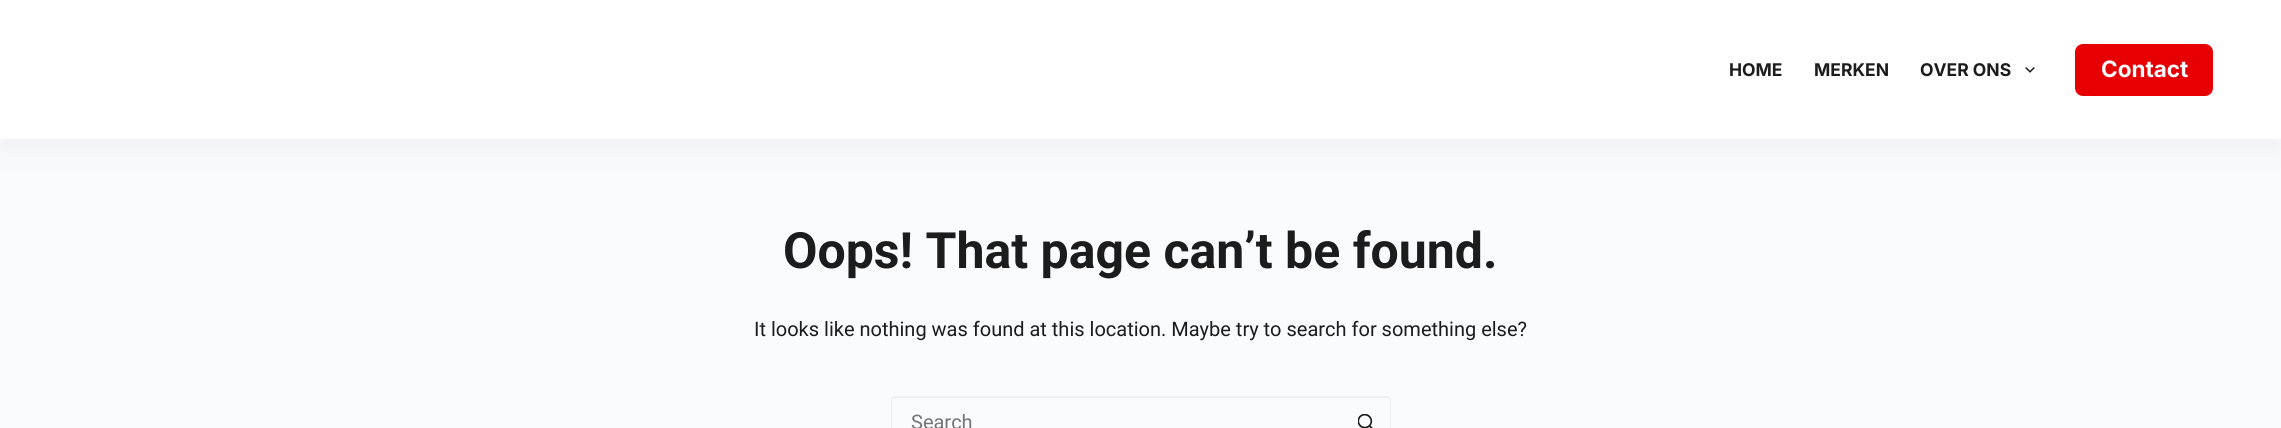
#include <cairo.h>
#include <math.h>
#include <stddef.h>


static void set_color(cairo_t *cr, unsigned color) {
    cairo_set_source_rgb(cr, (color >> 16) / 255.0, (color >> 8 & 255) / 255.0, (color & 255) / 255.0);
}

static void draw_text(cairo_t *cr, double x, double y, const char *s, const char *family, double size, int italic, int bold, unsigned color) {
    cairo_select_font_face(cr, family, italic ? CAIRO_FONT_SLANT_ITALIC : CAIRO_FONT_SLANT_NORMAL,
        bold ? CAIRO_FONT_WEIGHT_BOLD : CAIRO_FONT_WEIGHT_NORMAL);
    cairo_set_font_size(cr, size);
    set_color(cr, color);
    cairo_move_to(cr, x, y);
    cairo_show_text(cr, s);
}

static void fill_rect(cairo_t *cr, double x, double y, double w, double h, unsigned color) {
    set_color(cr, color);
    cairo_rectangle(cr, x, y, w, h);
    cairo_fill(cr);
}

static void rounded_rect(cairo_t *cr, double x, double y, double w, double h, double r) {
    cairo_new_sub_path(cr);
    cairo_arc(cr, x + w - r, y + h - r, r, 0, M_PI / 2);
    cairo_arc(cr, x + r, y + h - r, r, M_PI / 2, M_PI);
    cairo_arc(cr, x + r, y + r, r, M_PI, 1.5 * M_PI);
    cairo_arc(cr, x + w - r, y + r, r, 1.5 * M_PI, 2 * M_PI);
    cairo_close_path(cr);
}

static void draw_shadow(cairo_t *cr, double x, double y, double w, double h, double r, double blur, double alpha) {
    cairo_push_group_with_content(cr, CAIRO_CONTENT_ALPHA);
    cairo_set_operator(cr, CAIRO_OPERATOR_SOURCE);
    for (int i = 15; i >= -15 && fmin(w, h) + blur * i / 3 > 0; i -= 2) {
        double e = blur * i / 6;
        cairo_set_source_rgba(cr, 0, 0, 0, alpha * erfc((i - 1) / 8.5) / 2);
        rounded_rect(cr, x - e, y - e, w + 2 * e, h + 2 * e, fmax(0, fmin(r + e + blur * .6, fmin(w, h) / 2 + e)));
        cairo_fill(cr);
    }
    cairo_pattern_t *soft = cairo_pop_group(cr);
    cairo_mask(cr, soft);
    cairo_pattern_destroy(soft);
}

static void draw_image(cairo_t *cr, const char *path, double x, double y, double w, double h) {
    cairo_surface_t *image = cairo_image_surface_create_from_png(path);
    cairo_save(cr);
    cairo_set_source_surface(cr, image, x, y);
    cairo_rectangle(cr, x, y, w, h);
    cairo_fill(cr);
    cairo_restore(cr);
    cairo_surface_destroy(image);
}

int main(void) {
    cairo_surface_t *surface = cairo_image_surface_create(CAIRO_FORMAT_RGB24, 2281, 428);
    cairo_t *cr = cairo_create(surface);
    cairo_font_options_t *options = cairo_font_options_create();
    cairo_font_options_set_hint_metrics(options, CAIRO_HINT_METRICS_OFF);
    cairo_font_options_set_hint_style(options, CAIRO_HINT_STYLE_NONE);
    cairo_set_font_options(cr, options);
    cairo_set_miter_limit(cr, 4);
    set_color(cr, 0xFAFBFC);
    cairo_paint(cr);
    set_color(cr, 0x2C3E50);
    draw_shadow(cr, 0, 13, 2281, 138, 0, 12.5, 0.05);
    fill_rect(cr, 0, 0, 2281, 139, 0xFFFFFF);
    draw_text(cr, 1729, 76, "HOME", "Inter", 17.5, 0, 1, 0x1C1C1C);
    draw_text(cr, 1814, 76, "MERKEN", "Inter", 17.5, 0, 1, 0x1C1C1C);
    draw_text(cr, 1920, 76, "OVER ONS", "Inter", 17.5, 0, 1, 0x1C1C1C);
    draw_image(cr, "assets/img1.png", 2025, 67, 10, 6);
    set_color(cr, 0xE60004);
    rounded_rect(cr, 2075, 44, 138, 52, 8);
    cairo_fill(cr);
    draw_text(cr, 2101, 77, "Contact", "Inter", 22.5, 0, 1, 0xFFFFFF);
    draw_text(cr, 783, 268, "Oops! That page can’t be found.", "Roboto", 50, 0, 1, 0x1C1C1C);
    draw_text(cr, 754, 336, "It looks like nothing was found at this location. Maybe try to search for something else?", "Roboto", 20, 0, 0, 0x1C1C1C);
    set_color(cr, 0xEFEFEF);
    cairo_set_fill_rule(cr, CAIRO_FILL_RULE_EVEN_ODD);
    cairo_new_path(cr);
    cairo_move_to(cr, 895, 396);
    cairo_line_to(cr, 1341, 396);
    cairo_line_to(cr, 1341, 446);
    cairo_line_to(cr, 895, 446);
    cairo_curve_to(cr, 893, 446, 891, 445, 891, 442);
    cairo_line_to(cr, 891, 400);
    cairo_curve_to(cr, 891, 398, 893, 396, 895, 396);
    cairo_close_path(cr);
    cairo_move_to(cr, 895, 398);
    cairo_line_to(cr, 1341, 398);
    cairo_line_to(cr, 1341, 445);
    cairo_line_to(cr, 895, 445);
    cairo_curve_to(cr, 894, 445, 892, 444, 892, 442);
    cairo_line_to(cr, 892, 400);
    cairo_curve_to(cr, 892, 399, 894, 398, 895, 398);
    cairo_close_path(cr);
    cairo_fill(cr);
    draw_text(cr, 911, 429, "Search", "Roboto", 20, 0, 0, 0x747575);
    set_color(cr, 0xEFEFEF);
    cairo_new_path(cr);
    cairo_move_to(cr, 1341, 396);
    cairo_line_to(cr, 1388, 396);
    cairo_curve_to(cr, 1390, 396, 1391, 398, 1391, 400);
    cairo_line_to(cr, 1391, 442);
    cairo_curve_to(cr, 1391, 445, 1390, 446, 1388, 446);
    cairo_line_to(cr, 1341, 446);
    cairo_close_path(cr);
    cairo_move_to(cr, 1341, 398);
    cairo_line_to(cr, 1388, 398);
    cairo_curve_to(cr, 1389, 398, 1390, 399, 1390, 400);
    cairo_line_to(cr, 1390, 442);
    cairo_curve_to(cr, 1390, 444, 1389, 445, 1388, 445);
    cairo_line_to(cr, 1341, 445);
    cairo_close_path(cr);
    cairo_fill(cr);
    draw_image(cr, "assets/img2.png", 1358, 414, 15, 14);
    cairo_surface_write_to_png(surface, "output.png");
    cairo_font_options_destroy(options);
    cairo_destroy(cr);
    cairo_surface_destroy(surface);
    return 0;
}
